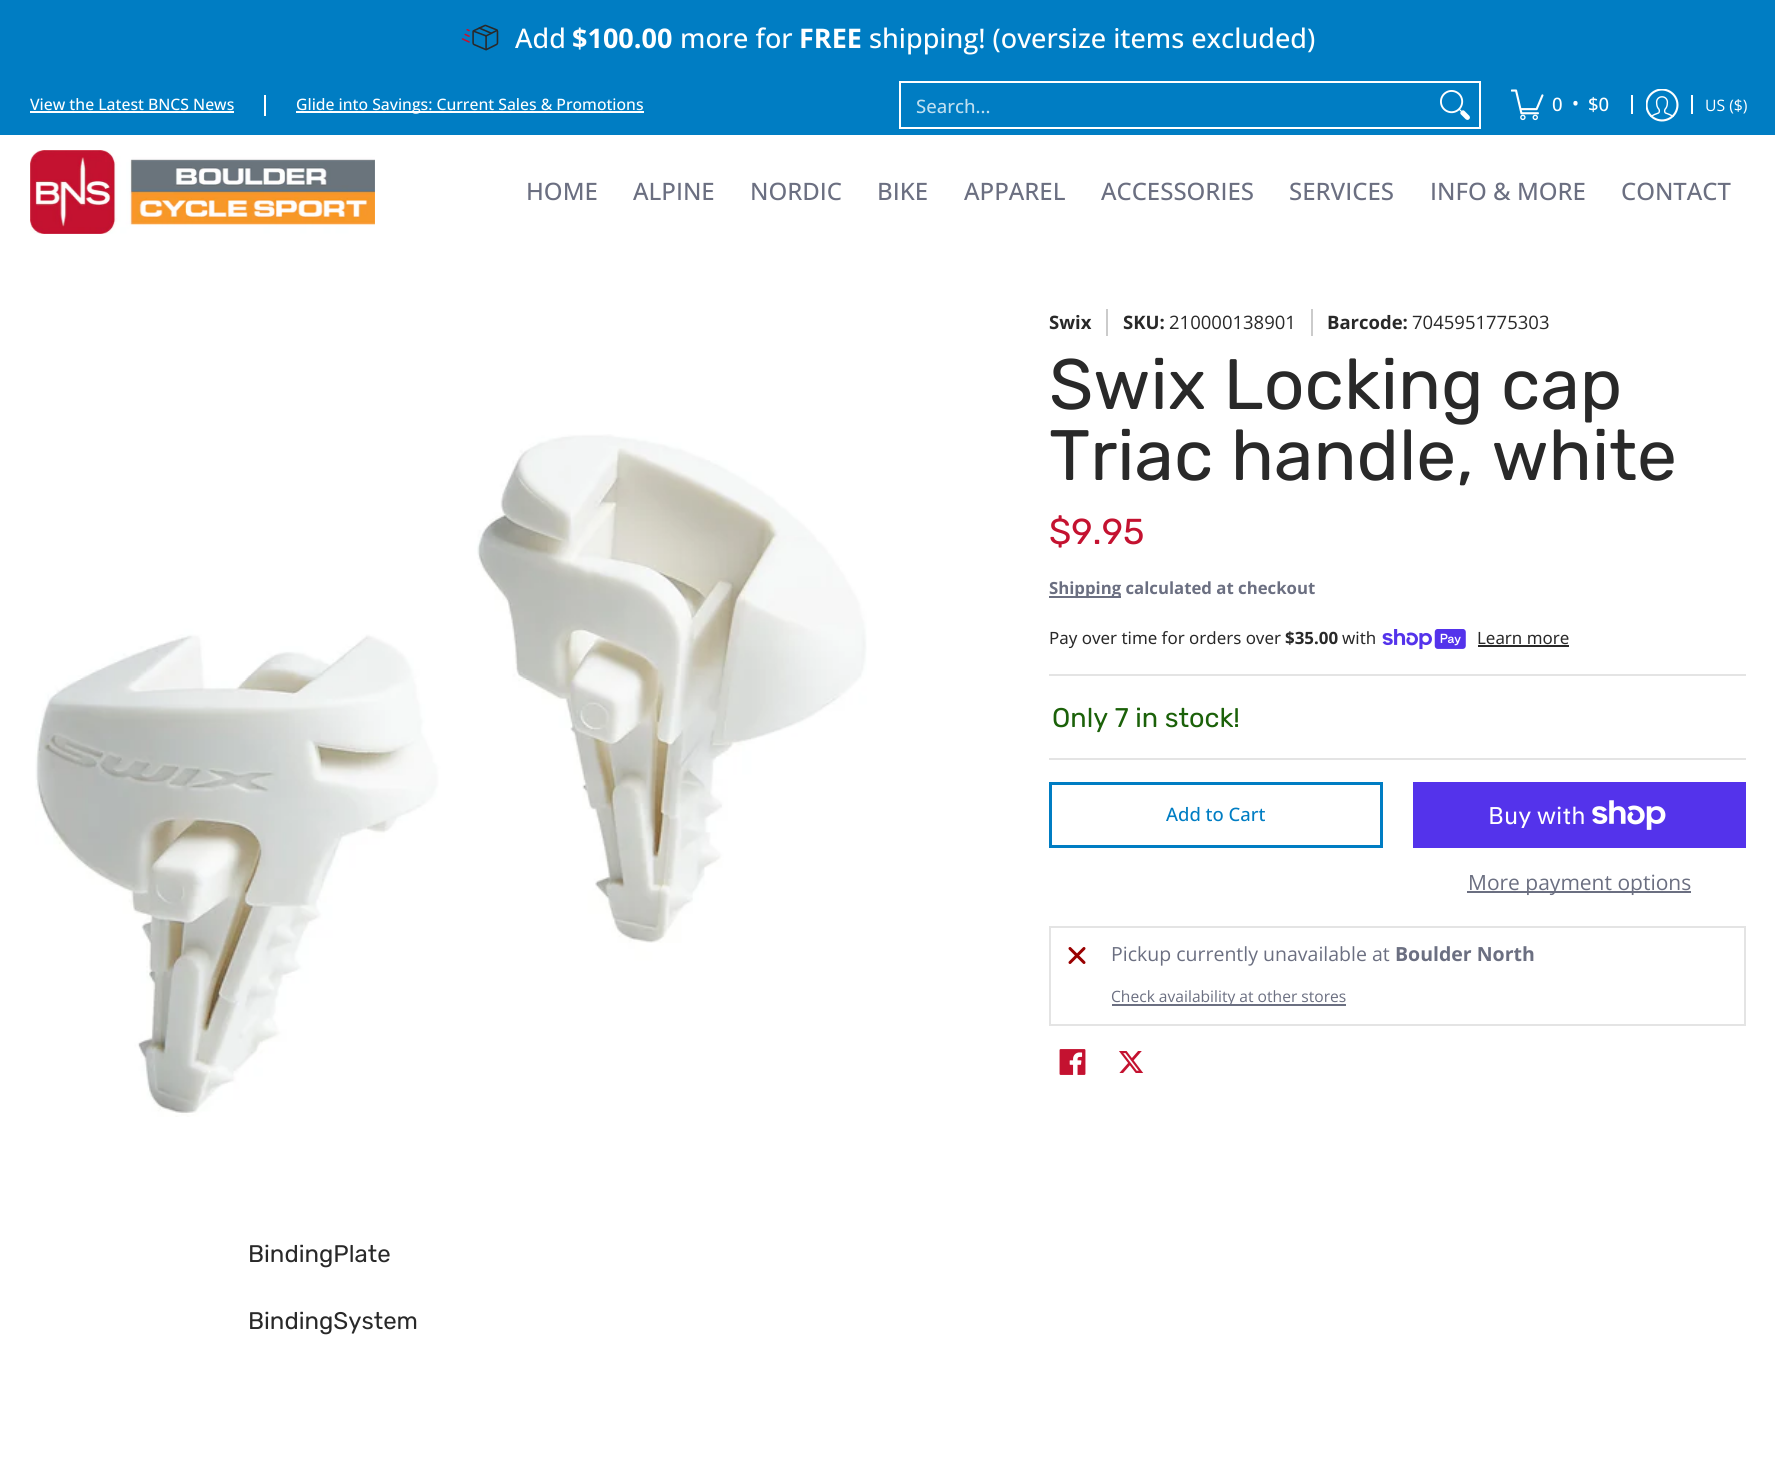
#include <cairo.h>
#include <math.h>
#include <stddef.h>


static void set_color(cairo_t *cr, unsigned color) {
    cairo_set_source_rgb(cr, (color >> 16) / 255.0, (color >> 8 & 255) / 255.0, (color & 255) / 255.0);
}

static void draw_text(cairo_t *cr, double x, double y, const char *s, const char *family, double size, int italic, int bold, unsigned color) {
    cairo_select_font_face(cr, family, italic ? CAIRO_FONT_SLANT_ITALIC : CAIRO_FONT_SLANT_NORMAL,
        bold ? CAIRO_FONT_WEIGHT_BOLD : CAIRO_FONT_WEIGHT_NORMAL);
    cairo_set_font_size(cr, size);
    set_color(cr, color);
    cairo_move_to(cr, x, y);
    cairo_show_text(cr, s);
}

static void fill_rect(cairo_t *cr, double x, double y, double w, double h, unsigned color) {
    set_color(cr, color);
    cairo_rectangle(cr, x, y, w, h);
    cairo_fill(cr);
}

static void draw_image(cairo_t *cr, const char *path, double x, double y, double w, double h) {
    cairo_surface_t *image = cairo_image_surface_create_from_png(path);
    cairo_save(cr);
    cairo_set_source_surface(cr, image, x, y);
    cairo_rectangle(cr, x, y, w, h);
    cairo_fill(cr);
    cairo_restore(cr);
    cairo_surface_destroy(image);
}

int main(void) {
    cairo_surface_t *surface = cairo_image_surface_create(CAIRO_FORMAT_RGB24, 1775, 1482);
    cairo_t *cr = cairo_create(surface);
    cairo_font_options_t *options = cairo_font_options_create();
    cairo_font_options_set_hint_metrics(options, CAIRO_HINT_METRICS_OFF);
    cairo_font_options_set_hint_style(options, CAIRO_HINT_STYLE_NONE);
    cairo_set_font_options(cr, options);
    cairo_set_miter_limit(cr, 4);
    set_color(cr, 0xFFFFFF);
    cairo_paint(cr);
    fill_rect(cr, 0, 0, 1775, 135, 0x007DC3);
    draw_image(cr, "assets/img1.png", 461, 24, 38, 27);
    draw_text(cr, 515, 48, "Add", "Open Sans Medium", 27, 0, 0, 0xFFFFFF);
    draw_text(cr, 572, 48, "$100.00", "Open Sans", 27, 0, 1, 0xFFFFFF);
    draw_text(cr, 680, 48, "more for", "Open Sans Medium", 27, 0, 0, 0xFFFFFF);
    draw_text(cr, 799, 48, "FREE", "Open Sans", 27, 0, 1, 0xFFFFFF);
    draw_text(cr, 869, 48, "shipping! (oversize items excluded)", "Open Sans Medium", 27, 0, 0, 0xFFFFFF);
    draw_text(cr, 30, 110, "View the Latest BNCS News", "Open Sans Medium", 15.75, 0, 0, 0xFFFFFF);
    fill_rect(cr, 30, 111, 204, 2, 0xFFFFFF);
    fill_rect(cr, 264, 95, 2, 21, 0xFFFFFF);
    fill_rect(cr, 296, 111, 348, 2, 0xFFFFFF);
    draw_text(cr, 296, 110, "Glide into Savings: Current Sales & Promotions", "Open Sans Medium", 15.75, 0, 0, 0xFFFFFF);
    cairo_rectangle(cr, 900, 82, 580, 46);
    cairo_stroke(cr);
    draw_text(cr, 916, 113, "Search...", "Open Sans Medium", 18.5, 0, 0, 0xBFDFF0);
    draw_image(cr, "assets/img2.png", 1440, 90, 30, 30);
    draw_image(cr, "assets/img3.png", 1511, 89, 33, 32);
    draw_text(cr, 1552, 111, "0", "Open Sans Medium", 18.5, 0, 0, 0xFFFFFF);
    draw_text(cr, 1572, 110, "•", "Open Sans Medium", 18.5, 0, 0, 0xFFFFFF);
    draw_text(cr, 1588, 111, "$0", "Open Sans Medium", 18.5, 0, 0, 0xFFFFFF);
    fill_rect(cr, 1631, 95, 2, 19, 0xFFFFFF);
    draw_image(cr, "assets/img4.png", 1646, 89, 33, 33);
    fill_rect(cr, 1691, 95, 2, 19, 0xFFFFFF);
    draw_text(cr, 1705, 111, "US ($)", "Open Sans", 15.75, 0, 0, 0xFFFFFF);
    draw_image(cr, "assets/img5.png", 30, 150, 345, 84);
    draw_text(cr, 526, 200, "HOME", "Open Sans Medium", 24, 0, 0, 0x6B6F81);
    draw_text(cr, 633, 200, "ALPINE", "Open Sans Medium", 24, 0, 0, 0x6B6F81);
    draw_text(cr, 750, 200, "NORDIC", "Open Sans Medium", 24, 0, 0, 0x6B6F81);
    draw_text(cr, 877, 200, "BIKE", "Open Sans Medium", 24, 0, 0, 0x6B6F81);
    draw_text(cr, 964, 200, "APPAREL", "Open Sans Medium", 24, 0, 0, 0x6B6F81);
    draw_text(cr, 1101, 200, "ACCESSORIES", "Open Sans Medium", 24, 0, 0, 0x6B6F81);
    draw_text(cr, 1289, 200, "SERVICES", "Open Sans Medium", 24, 0, 0, 0x6B6F81);
    draw_text(cr, 1430, 200, "INFO & MORE", "Open Sans Medium", 24, 0, 0, 0x6B6F81);
    draw_text(cr, 1621, 200, "CONTACT", "Open Sans Medium", 24, 0, 0, 0x6B6F81);
    draw_image(cr, "assets/img6.png", 35, 434, 832, 683);
    draw_text(cr, 1049, 329, "Swix", "Open Sans", 18.5, 0, 1, 0x292929);
    fill_rect(cr, 1106, 309, 2, 27, 0xCBCBCB);
    draw_text(cr, 1123, 329, "SKU:", "Open Sans", 18.5, 0, 1, 0x292929);
    draw_text(cr, 1169, 329, "210000138901", "Open Sans", 18.5, 0, 0, 0x292929);
    fill_rect(cr, 1311, 309, 2, 27, 0xCBCBCB);
    draw_text(cr, 1327, 329, "Barcode:", "Open Sans", 18.5, 0, 1, 0x292929);
    draw_text(cr, 1412, 329, "7045951775303", "Open Sans", 18.5, 0, 0, 0x292929);
    draw_text(cr, 1049, 409, "Swix Locking cap", "Rubik", 71.25, 0, 0, 0x292929);
    draw_text(cr, 1049, 480, "Triac handle, white", "Rubik", 71.25, 0, 0, 0x292929);
    draw_text(cr, 1049, 544, "$9.95", "Rubik", 36, 0, 0, 0xC41230);
    fill_rect(cr, 1049, 596, 72, 2, 0x6B6F81);
    draw_text(cr, 1049, 594, "Shipping calculated at checkout", "Open Sans", 16.75, 0, 1, 0x6B6F81);
    fill_rect(cr, 1049, 674, 697, 2, 0xE4E4E4);
    draw_text(cr, 1049, 644, "Pay over time for orders over", "Noto Sans", 16.9, 0, 0, 0x292929);
    draw_text(cr, 1285, 644, "$35.00", "Noto Sans", 16.9, 0, 1, 0x292929);
    draw_text(cr, 1342, 644, "with", "Noto Sans", 16.9, 0, 0, 0x292929);
    draw_image(cr, "assets/img7.png", 1382, 629, 84, 21);
    draw_text(cr, 1477, 644, "Learn more", "Noto Sans", 16.9, 0, 0, 0x292929);
    fill_rect(cr, 1478, 645, 91, 2, 0x292929);
    fill_rect(cr, 1049, 758, 697, 2, 0xE4E4E4);
    draw_text(cr, 1052, 727, "Only 7 in stock!", "Rubik", 27, 0, 0, 0x1B6109);
    cairo_rectangle(cr, 1050.5, 783.5, 331, 63);
    set_color(cr, 0x007DC3);
    cairo_set_line_width(cr, 3);
    cairo_stroke(cr);
    draw_text(cr, 1166, 821, "Add to Cart", "Open Sans Medium", 18.5, 0, 0, 0x007DC3);
    fill_rect(cr, 1413, 782, 333, 66, 0x5433EB);
    draw_text(cr, 1488, 824, "Buy with", "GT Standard", 24, 0, 0, 0xFFFFFF);
    draw_image(cr, "assets/img8.png", 1592, 800, 74, 30);
    fill_rect(cr, 1467, 891, 224, 2, 0x6B6F81);
    draw_text(cr, 1468, 890, "More payment options", "Open Sans", 21, 0, 0, 0x6B6F81);
    cairo_rectangle(cr, 1050, 927, 695, 98);
    set_color(cr, 0xE4E4E4);
    cairo_set_line_width(cr, 2);
    cairo_stroke(cr);
    cairo_new_path(cr);
    cairo_move_to(cr, 1070, 948.5);
    cairo_line_to(cr, 1084, 962.5);
    cairo_move_to(cr, 1084, 948.5);
    cairo_line_to(cr, 1070, 962.5);
    set_color(cr, 0x990000);
    cairo_set_line_width(cr, 3);
    cairo_set_line_cap(cr, CAIRO_LINE_CAP_ROUND);
    cairo_set_line_join(cr, CAIRO_LINE_JOIN_ROUND);
    cairo_stroke(cr);
    draw_text(cr, 1111, 961, "Pickup currently unavailable at", "Open Sans", 19.5, 0, 0, 0x6B6F81);
    draw_text(cr, 1395, 961, "Boulder North", "Open Sans", 19.5, 0, 1, 0x6B6F81);
    fill_rect(cr, 1112, 1004, 234, 2, 0x6B6F81);
    draw_text(cr, 1111, 1002, "Check availability at other stores", "Open Sans", 15.6, 0, 0, 0x6B6F81);
    draw_image(cr, "assets/img9.png", 1059, 1049, 27, 26);
    draw_image(cr, "assets/img10.png", 1119, 1051, 25, 22);
    draw_text(cr, 248, 1262, "BindingPlate", "Rubik", 24, 0, 0, 0x292929);
    draw_text(cr, 248, 1329, "BindingSystem", "Rubik", 24, 0, 0, 0x292929);
    cairo_surface_write_to_png(surface, "output.png");
    cairo_font_options_destroy(options);
    cairo_destroy(cr);
    cairo_surface_destroy(surface);
    return 0;
}
